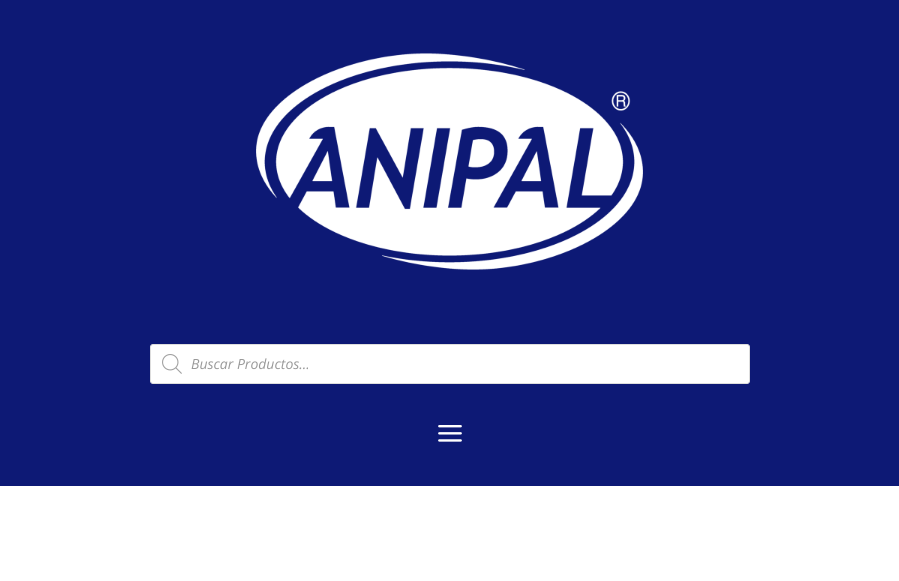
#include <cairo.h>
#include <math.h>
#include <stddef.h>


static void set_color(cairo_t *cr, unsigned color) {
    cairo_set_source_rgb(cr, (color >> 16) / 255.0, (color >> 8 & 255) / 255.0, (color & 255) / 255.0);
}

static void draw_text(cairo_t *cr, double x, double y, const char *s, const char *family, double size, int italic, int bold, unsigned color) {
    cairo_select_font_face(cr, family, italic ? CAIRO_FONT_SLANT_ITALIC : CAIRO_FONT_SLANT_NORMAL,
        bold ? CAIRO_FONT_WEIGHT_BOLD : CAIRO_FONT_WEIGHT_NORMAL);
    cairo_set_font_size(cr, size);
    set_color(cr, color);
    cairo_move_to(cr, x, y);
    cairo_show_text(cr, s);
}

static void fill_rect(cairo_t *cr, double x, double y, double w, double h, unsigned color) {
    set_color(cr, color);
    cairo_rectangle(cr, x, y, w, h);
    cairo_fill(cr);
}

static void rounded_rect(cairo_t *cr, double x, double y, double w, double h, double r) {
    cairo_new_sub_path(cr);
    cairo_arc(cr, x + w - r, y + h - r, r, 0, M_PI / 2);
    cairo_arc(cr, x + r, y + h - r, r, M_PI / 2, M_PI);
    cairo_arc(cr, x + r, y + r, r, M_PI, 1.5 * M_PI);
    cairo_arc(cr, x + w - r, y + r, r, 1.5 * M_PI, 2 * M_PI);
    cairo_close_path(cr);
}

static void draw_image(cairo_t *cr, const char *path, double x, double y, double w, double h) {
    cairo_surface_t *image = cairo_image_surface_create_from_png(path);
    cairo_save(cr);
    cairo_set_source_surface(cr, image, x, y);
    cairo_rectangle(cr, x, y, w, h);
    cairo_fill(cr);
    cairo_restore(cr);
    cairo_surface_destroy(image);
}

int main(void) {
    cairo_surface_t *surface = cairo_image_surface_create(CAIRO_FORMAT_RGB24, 899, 581);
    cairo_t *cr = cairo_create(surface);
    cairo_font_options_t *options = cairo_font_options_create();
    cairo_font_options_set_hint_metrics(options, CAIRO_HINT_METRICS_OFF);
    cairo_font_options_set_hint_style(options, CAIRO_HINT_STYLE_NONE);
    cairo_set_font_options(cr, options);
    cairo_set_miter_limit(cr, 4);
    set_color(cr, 0xFFFFFF);
    cairo_paint(cr);
    fill_rect(cr, 0, 0, 899, 486, 0x0D1975);
    draw_image(cr, "assets/img1.png", 256, 53, 387, 217);
    set_color(cr, 0xFFFFFF);
    rounded_rect(cr, 150.5, 344.5, 599, 39, 2.5);
    cairo_fill_preserve(cr);
    set_color(cr, 0xDDDDDD);
    cairo_set_line_width(cr, 1);
    cairo_stroke(cr);
    draw_image(cr, "assets/img2.png", 162, 354, 20, 20);
    draw_text(cr, 191, 369, "Buscar Productos...", "Open Sans", 14, 1, 0, 0x999999);
    draw_image(cr, "assets/img3.png", 438, 425, 24, 17);
    cairo_surface_write_to_png(surface, "output.png");
    cairo_font_options_destroy(options);
    cairo_destroy(cr);
    cairo_surface_destroy(surface);
    return 0;
}
